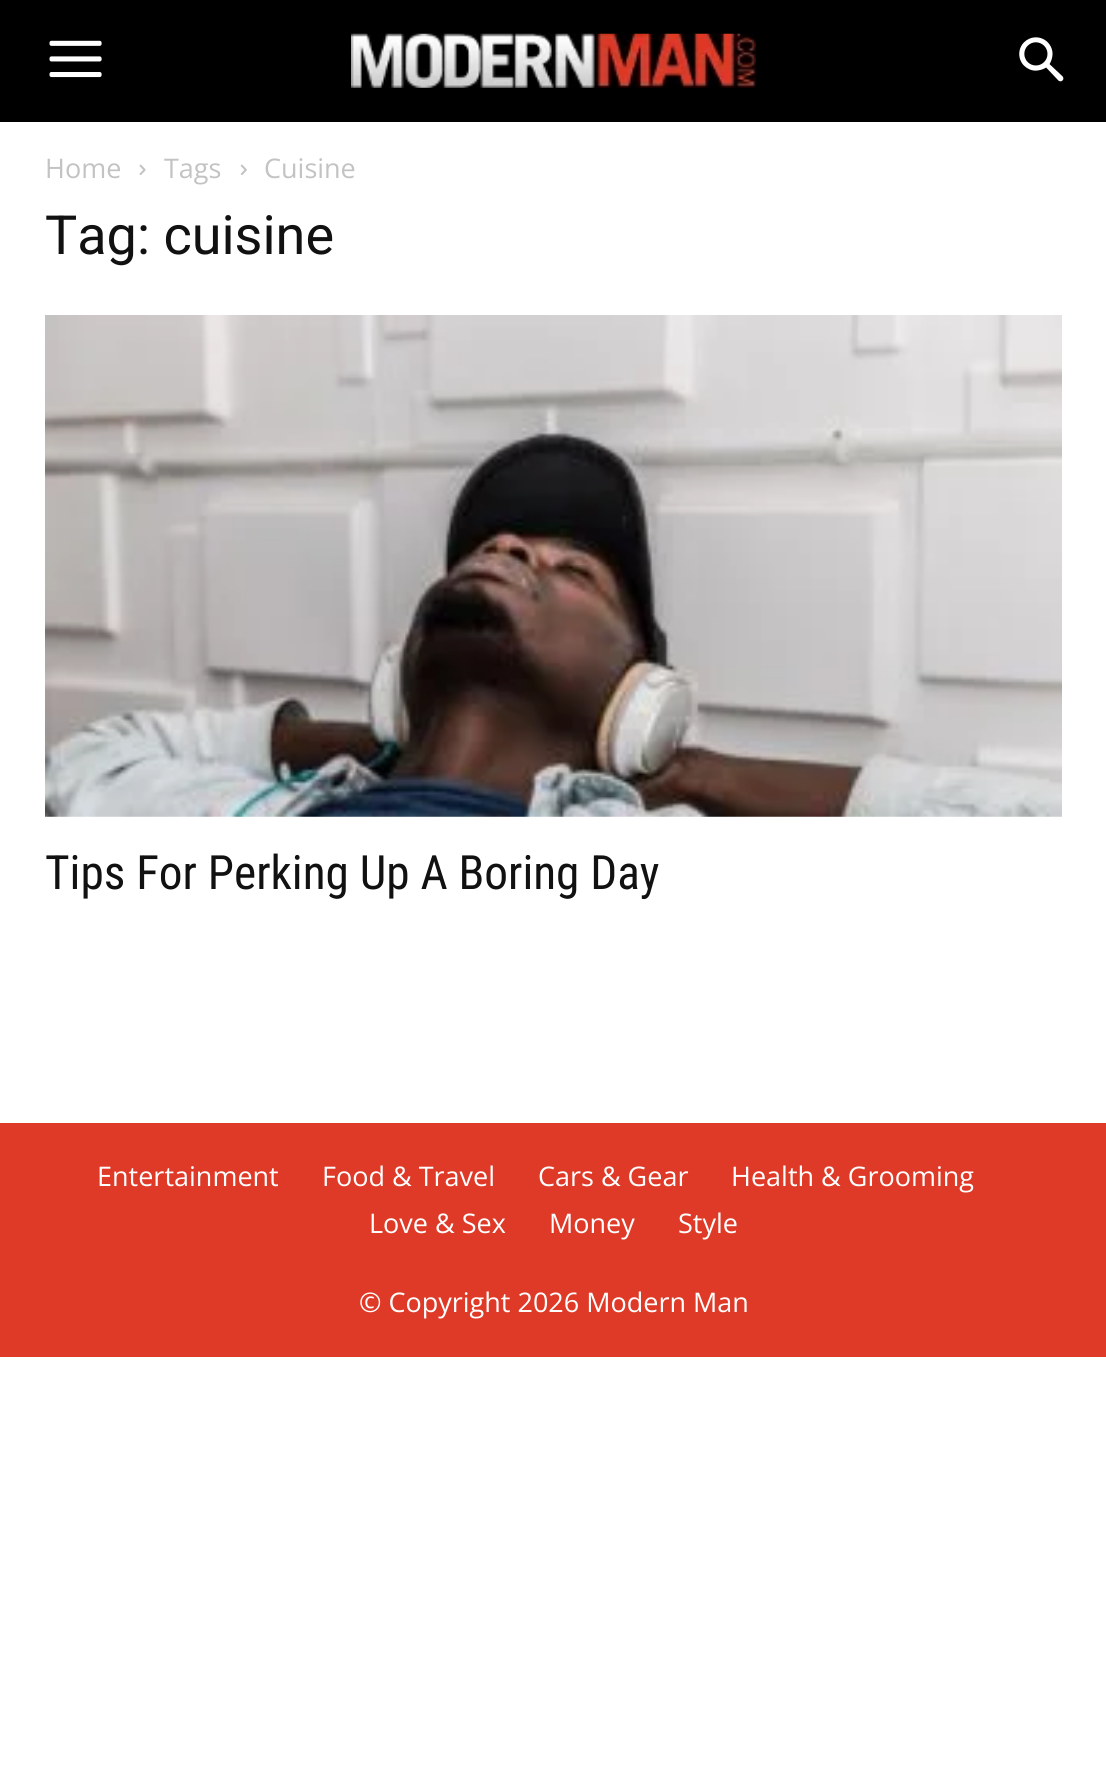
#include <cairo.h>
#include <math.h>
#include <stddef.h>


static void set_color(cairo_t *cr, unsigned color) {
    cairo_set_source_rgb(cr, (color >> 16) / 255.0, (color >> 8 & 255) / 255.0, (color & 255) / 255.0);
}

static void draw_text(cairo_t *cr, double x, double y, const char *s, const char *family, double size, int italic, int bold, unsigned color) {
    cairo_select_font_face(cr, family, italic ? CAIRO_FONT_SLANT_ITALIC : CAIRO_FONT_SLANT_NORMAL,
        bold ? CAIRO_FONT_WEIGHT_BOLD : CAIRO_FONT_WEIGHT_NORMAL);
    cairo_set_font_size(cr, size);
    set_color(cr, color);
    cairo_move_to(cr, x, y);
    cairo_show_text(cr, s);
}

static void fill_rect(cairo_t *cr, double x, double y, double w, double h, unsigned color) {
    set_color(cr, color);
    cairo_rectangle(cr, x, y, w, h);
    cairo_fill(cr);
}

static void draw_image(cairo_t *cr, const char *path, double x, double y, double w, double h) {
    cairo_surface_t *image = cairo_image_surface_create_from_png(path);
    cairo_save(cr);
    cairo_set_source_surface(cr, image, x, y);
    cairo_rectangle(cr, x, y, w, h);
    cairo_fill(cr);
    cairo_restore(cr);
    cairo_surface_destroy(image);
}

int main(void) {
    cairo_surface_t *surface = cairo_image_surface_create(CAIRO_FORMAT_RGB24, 1106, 1770);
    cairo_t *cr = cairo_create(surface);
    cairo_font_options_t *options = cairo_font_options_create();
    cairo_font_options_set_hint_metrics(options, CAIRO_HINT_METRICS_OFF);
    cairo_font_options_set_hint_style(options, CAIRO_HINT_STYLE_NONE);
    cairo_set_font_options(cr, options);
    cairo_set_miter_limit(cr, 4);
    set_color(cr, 0xFFFFFF);
    cairo_paint(cr);
    fill_rect(cr, 0, 0, 1106, 122, 0x000000);
    draw_image(cr, "assets/img1.png", 49, 40, 53, 38);
    draw_image(cr, "assets/img2.png", 351, 33, 405, 55);
    draw_image(cr, "assets/img3.png", 1019, 37, 45, 45);
    draw_text(cr, 45, 178, "Home", "Open Sans", 27, 0, 0, 0xC3C3C3);
    draw_image(cr, "assets/img4.png", 139, 164, 7, 11);
    draw_text(cr, 164, 178, "Tags", "Open Sans", 27, 0, 0, 0xC3C3C3);
    draw_image(cr, "assets/img5.png", 240, 164, 7, 11);
    draw_text(cr, 264, 178, "Cuisine", "Open Sans", 27, 0, 0, 0xC3C3C3);
    draw_text(cr, 45, 254, "Tag: cuisine", "Roboto", 54, 0, 0, 0x111111);
    draw_image(cr, "assets/img6.png", 45, 315, 1017, 502);
    draw_text(cr, 45, 889, "Tips For Perking Up A Boring Day", "Roboto Condensed", 47.25, 0, 0, 0x111111);
    fill_rect(cr, 0, 1123, 1106, 234, 0xDF3A27);
    draw_text(cr, 97, 1186, "Entertainment", "Open Sans", 27, 0, 0, 0xFFFFFF);
    draw_text(cr, 322, 1186, "Food & Travel", "Open Sans", 27, 0, 0, 0xFFFFFF);
    draw_text(cr, 538, 1186, "Cars & Gear", "Open Sans", 27, 0, 0, 0xFFFFFF);
    draw_text(cr, 731, 1186, "Health & Grooming", "Open Sans", 27, 0, 0, 0xFFFFFF);
    draw_text(cr, 369, 1233, "Love & Sex", "Open Sans", 27, 0, 0, 0xFFFFFF);
    draw_text(cr, 549, 1233, "Money", "Open Sans", 27, 0, 0, 0xFFFFFF);
    draw_text(cr, 678, 1233, "Style", "Open Sans", 27, 0, 0, 0xFFFFFF);
    draw_text(cr, 359, 1312, "© Copyright 2026 Modern Man", "Open Sans", 27, 0, 0, 0xFFFFFF);
    cairo_surface_write_to_png(surface, "output.png");
    cairo_font_options_destroy(options);
    cairo_destroy(cr);
    cairo_surface_destroy(surface);
    return 0;
}
